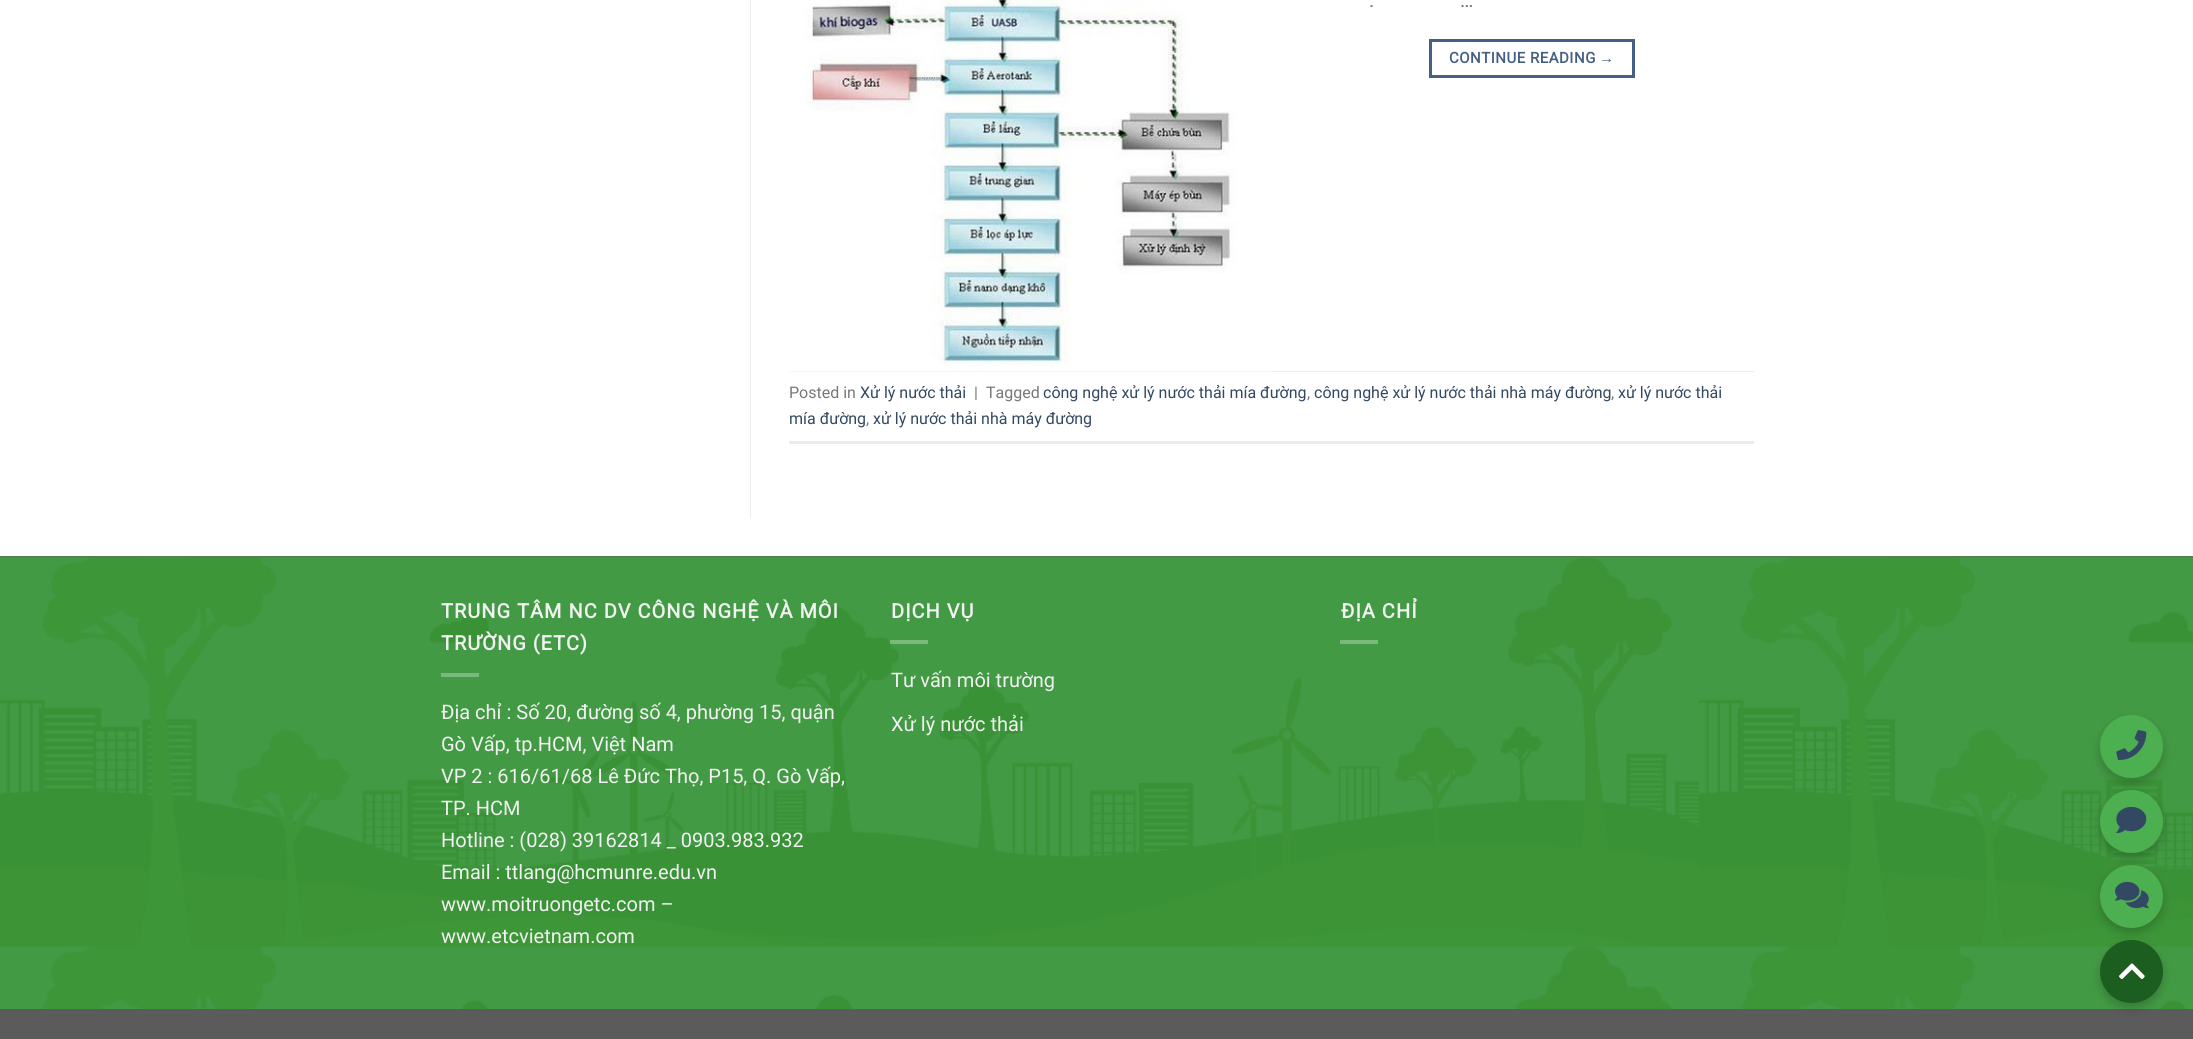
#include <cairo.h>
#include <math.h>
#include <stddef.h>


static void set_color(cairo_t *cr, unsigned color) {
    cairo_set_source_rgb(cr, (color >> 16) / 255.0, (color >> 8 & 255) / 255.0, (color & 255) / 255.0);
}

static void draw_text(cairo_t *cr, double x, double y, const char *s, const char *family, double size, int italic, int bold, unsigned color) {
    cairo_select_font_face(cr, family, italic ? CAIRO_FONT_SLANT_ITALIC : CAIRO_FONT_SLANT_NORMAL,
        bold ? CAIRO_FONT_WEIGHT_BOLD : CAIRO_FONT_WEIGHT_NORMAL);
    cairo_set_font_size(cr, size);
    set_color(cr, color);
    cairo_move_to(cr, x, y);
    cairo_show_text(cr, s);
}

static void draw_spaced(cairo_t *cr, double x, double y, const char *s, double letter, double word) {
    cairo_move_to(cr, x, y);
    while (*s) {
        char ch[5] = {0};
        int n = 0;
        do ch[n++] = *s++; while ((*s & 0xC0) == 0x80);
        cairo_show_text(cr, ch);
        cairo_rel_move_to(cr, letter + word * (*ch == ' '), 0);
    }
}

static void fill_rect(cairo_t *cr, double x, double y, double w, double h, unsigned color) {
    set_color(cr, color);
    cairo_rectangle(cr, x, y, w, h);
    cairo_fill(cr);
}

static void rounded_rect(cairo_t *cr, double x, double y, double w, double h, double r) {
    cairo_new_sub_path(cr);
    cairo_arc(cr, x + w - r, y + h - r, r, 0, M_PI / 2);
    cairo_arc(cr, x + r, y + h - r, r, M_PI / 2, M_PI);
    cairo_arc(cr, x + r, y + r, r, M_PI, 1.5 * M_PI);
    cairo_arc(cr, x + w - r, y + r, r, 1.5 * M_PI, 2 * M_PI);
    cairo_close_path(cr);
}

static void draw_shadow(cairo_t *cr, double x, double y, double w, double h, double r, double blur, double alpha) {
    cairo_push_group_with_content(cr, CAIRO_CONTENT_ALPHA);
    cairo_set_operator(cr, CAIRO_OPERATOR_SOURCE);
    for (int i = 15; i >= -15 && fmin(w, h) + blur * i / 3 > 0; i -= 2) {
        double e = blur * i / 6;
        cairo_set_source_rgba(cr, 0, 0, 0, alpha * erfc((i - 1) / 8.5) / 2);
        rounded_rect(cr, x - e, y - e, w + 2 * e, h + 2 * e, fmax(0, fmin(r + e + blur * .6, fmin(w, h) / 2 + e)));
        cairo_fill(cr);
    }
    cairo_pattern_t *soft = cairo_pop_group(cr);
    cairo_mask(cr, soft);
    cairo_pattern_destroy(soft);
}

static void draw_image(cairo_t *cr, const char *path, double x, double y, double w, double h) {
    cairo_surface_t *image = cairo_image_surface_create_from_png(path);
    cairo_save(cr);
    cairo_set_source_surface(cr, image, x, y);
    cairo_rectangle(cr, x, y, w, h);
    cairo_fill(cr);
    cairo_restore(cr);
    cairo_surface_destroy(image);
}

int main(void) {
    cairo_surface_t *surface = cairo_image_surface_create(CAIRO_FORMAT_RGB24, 2193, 1039);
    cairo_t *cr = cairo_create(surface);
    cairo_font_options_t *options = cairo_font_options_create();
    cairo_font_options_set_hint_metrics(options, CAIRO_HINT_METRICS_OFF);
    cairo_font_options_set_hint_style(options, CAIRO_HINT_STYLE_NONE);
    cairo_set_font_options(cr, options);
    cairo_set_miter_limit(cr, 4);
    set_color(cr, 0xFFFFFF);
    cairo_paint(cr);
    fill_rect(cr, 750, 0, 1, 519, 0xECECEC);
    fill_rect(cr, 789, 371, 965, 1, 0xECECEC);
    draw_image(cr, "assets/img1.png", 789, 0, 482, 372);
    draw_text(cr, 1369, 7, ".", "Roboto", 20, 0, 0, 0x777777);
    draw_text(cr, 1460, 7, "…", "Roboto", 20, 0, 0, 0x777777);
    cairo_rectangle(cr, 1430.5, 40.5, 203, 36);
    set_color(cr, 0x446084);
    cairo_set_line_width(cr, 3);
    cairo_stroke(cr);
    cairo_select_font_face(cr, "Roboto", CAIRO_FONT_SLANT_NORMAL, CAIRO_FONT_WEIGHT_BOLD);
    cairo_set_font_size(cr, 15);
    draw_spaced(cr, 1449, 63, "CONTINUE READING", 0.5, 0);
    cairo_select_font_face(cr, "Liberation Sans", CAIRO_FONT_SLANT_NORMAL, CAIRO_FONT_WEIGHT_BOLD);
    draw_spaced(cr, 1599, 63, "→", 0.5, 0);
    fill_rect(cr, 789, 441, 965, 3, 0xECECEC);
    draw_text(cr, 789, 398, "Posted in", "Roboto", 16, 0, 0, 0x777777);
    draw_text(cr, 860, 398, "Xử lý nước thải", "Roboto", 16, 0, 0, 0x334862);
    draw_text(cr, 974, 398, "|", "Roboto", 16, 0, 0, 0x777777);
    draw_text(cr, 986, 398, "Tagged", "Roboto", 16, 0, 0, 0x777777);
    draw_text(cr, 1043, 398, "công nghệ xử lý nước thải mía đường", "Roboto", 16, 0, 0, 0x334862);
    draw_text(cr, 1307, 398, ",", "Roboto", 16, 0, 0, 0x777777);
    draw_text(cr, 1314, 398, "công nghệ xử lý nước thải nhà máy đường", "Roboto", 16, 0, 0, 0x334862);
    draw_text(cr, 1611, 398, ",", "Roboto", 16, 0, 0, 0x777777);
    draw_text(cr, 1618, 398, "xử lý nước thải", "Roboto", 16, 0, 0, 0x334862);
    draw_text(cr, 789, 424, "mía đường", "Roboto", 16, 0, 0, 0x334862);
    draw_text(cr, 866, 424, ",", "Roboto", 16, 0, 0, 0x777777);
    draw_text(cr, 873, 424, "xử lý nước thải nhà máy đường", "Roboto", 16, 0, 0, 0x334862);
    draw_image(cr, "assets/img2.png", 0, 557, 2193, 452);
    fill_rect(cr, 0, 556, 2193, 1, 0x557F53);
    cairo_select_font_face(cr, "Roboto", CAIRO_FONT_SLANT_NORMAL, CAIRO_FONT_WEIGHT_BOLD);
    cairo_set_font_size(cr, 20);
    set_color(cr, 0xF1F1F1);
    draw_spaced(cr, 441, 618, "TRUNG TÂM NC DV CÔNG NGHỆ VÀ MÔI", 1, 0);
    draw_spaced(cr, 441, 650, "TRƯỜNG (ETC)", 1, 0);
    fill_rect(cr, 441, 673, 38, 4, 0x7BB87C);
    draw_text(cr, 441, 719, "Địa chỉ : Số 20, đường số 4, phường 15, quận", "Roboto", 20, 0, 0, 0xF1F1F1);
    draw_text(cr, 441, 751, "Gò Vấp, tp.HCM, Việt Nam", "Roboto", 20, 0, 0, 0xF1F1F1);
    draw_text(cr, 441, 783, "VP 2 : 616/61/68 Lê Đức Thọ, P15, Q. Gò Vấp,", "Roboto", 20, 0, 0, 0xF1F1F1);
    draw_text(cr, 441, 815, "TP. HCM", "Roboto", 20, 0, 0, 0xF1F1F1);
    draw_text(cr, 441, 847, "Hotline : (028) 39162814 _ 0903.983.932", "Roboto", 20, 0, 0, 0xF1F1F1);
    draw_text(cr, 441, 879, "Email : ttlang@hcmunre.edu.vn", "Roboto", 20, 0, 0, 0xF1F1F1);
    draw_text(cr, 441, 911, "www.moitruongetc.com –", "Roboto", 20, 0, 0, 0xF1F1F1);
    draw_text(cr, 441, 943, "www.etcvietnam.com", "Roboto", 20, 0, 0, 0xF1F1F1);
    cairo_select_font_face(cr, "Roboto", CAIRO_FONT_SLANT_NORMAL, CAIRO_FONT_WEIGHT_BOLD);
    draw_spaced(cr, 891, 618, "DỊCH VỤ", 1, 0);
    cairo_set_source_rgba(cr, 1, 1, 1, 0.3);
    cairo_rectangle(cr, 890, 640, 38, 4);
    cairo_fill(cr);
    draw_text(cr, 891, 687, "Tư vấn môi trường", "Roboto", 20, 0, 0, 0xF1F1F1);
    draw_text(cr, 891, 731, "Xử lý nước thải", "Roboto", 20, 0, 0, 0xF1F1F1);
    cairo_select_font_face(cr, "Roboto", CAIRO_FONT_SLANT_NORMAL, CAIRO_FONT_WEIGHT_BOLD);
    draw_spaced(cr, 1341, 618, "ĐỊA CHỈ", 1, 0);
    fill_rect(cr, 1340, 640, 38, 4, 0x7BB87C);
    fill_rect(cr, 0, 1009, 2193, 30, 0x5B5B5B);
    set_color(cr, 0x000000);
    draw_shadow(cr, 2100, 720, 63, 63, 31.5, 5, 0.2);
    set_color(cr, 0x4CAF50);
    cairo_arc(cr, 2131.5, 746.5, 31.5, 0, 2 * M_PI);
    cairo_fill(cr);
    draw_image(cr, "assets/img3.png", 2116, 730, 31, 30);
    set_color(cr, 0x000000);
    draw_shadow(cr, 2100, 795, 63, 63, 31.5, 5, 0.2);
    set_color(cr, 0x4CAF50);
    cairo_arc(cr, 2131.5, 821.5, 31.5, 0, 2 * M_PI);
    cairo_fill(cr);
    draw_image(cr, "assets/img4.png", 2116, 806, 31, 28);
    set_color(cr, 0x000000);
    draw_shadow(cr, 2100, 870, 63, 63, 31.5, 5, 0.2);
    set_color(cr, 0x4CAF50);
    cairo_arc(cr, 2131.5, 896.5, 31.5, 0, 2 * M_PI);
    cairo_fill(cr);
    draw_image(cr, "assets/img5.png", 2115, 881, 34, 28);
    set_color(cr, 0x000000);
    draw_shadow(cr, 2100, 945, 63, 63, 31.5, 5, 0.2);
    set_color(cr, 0x1B5E20);
    cairo_arc(cr, 2131.5, 971.5, 31.5, 0, 2 * M_PI);
    cairo_fill(cr);
    draw_image(cr, "assets/img6.png", 2119, 963, 26, 16);
    cairo_surface_write_to_png(surface, "output.png");
    cairo_font_options_destroy(options);
    cairo_destroy(cr);
    cairo_surface_destroy(surface);
    return 0;
}
